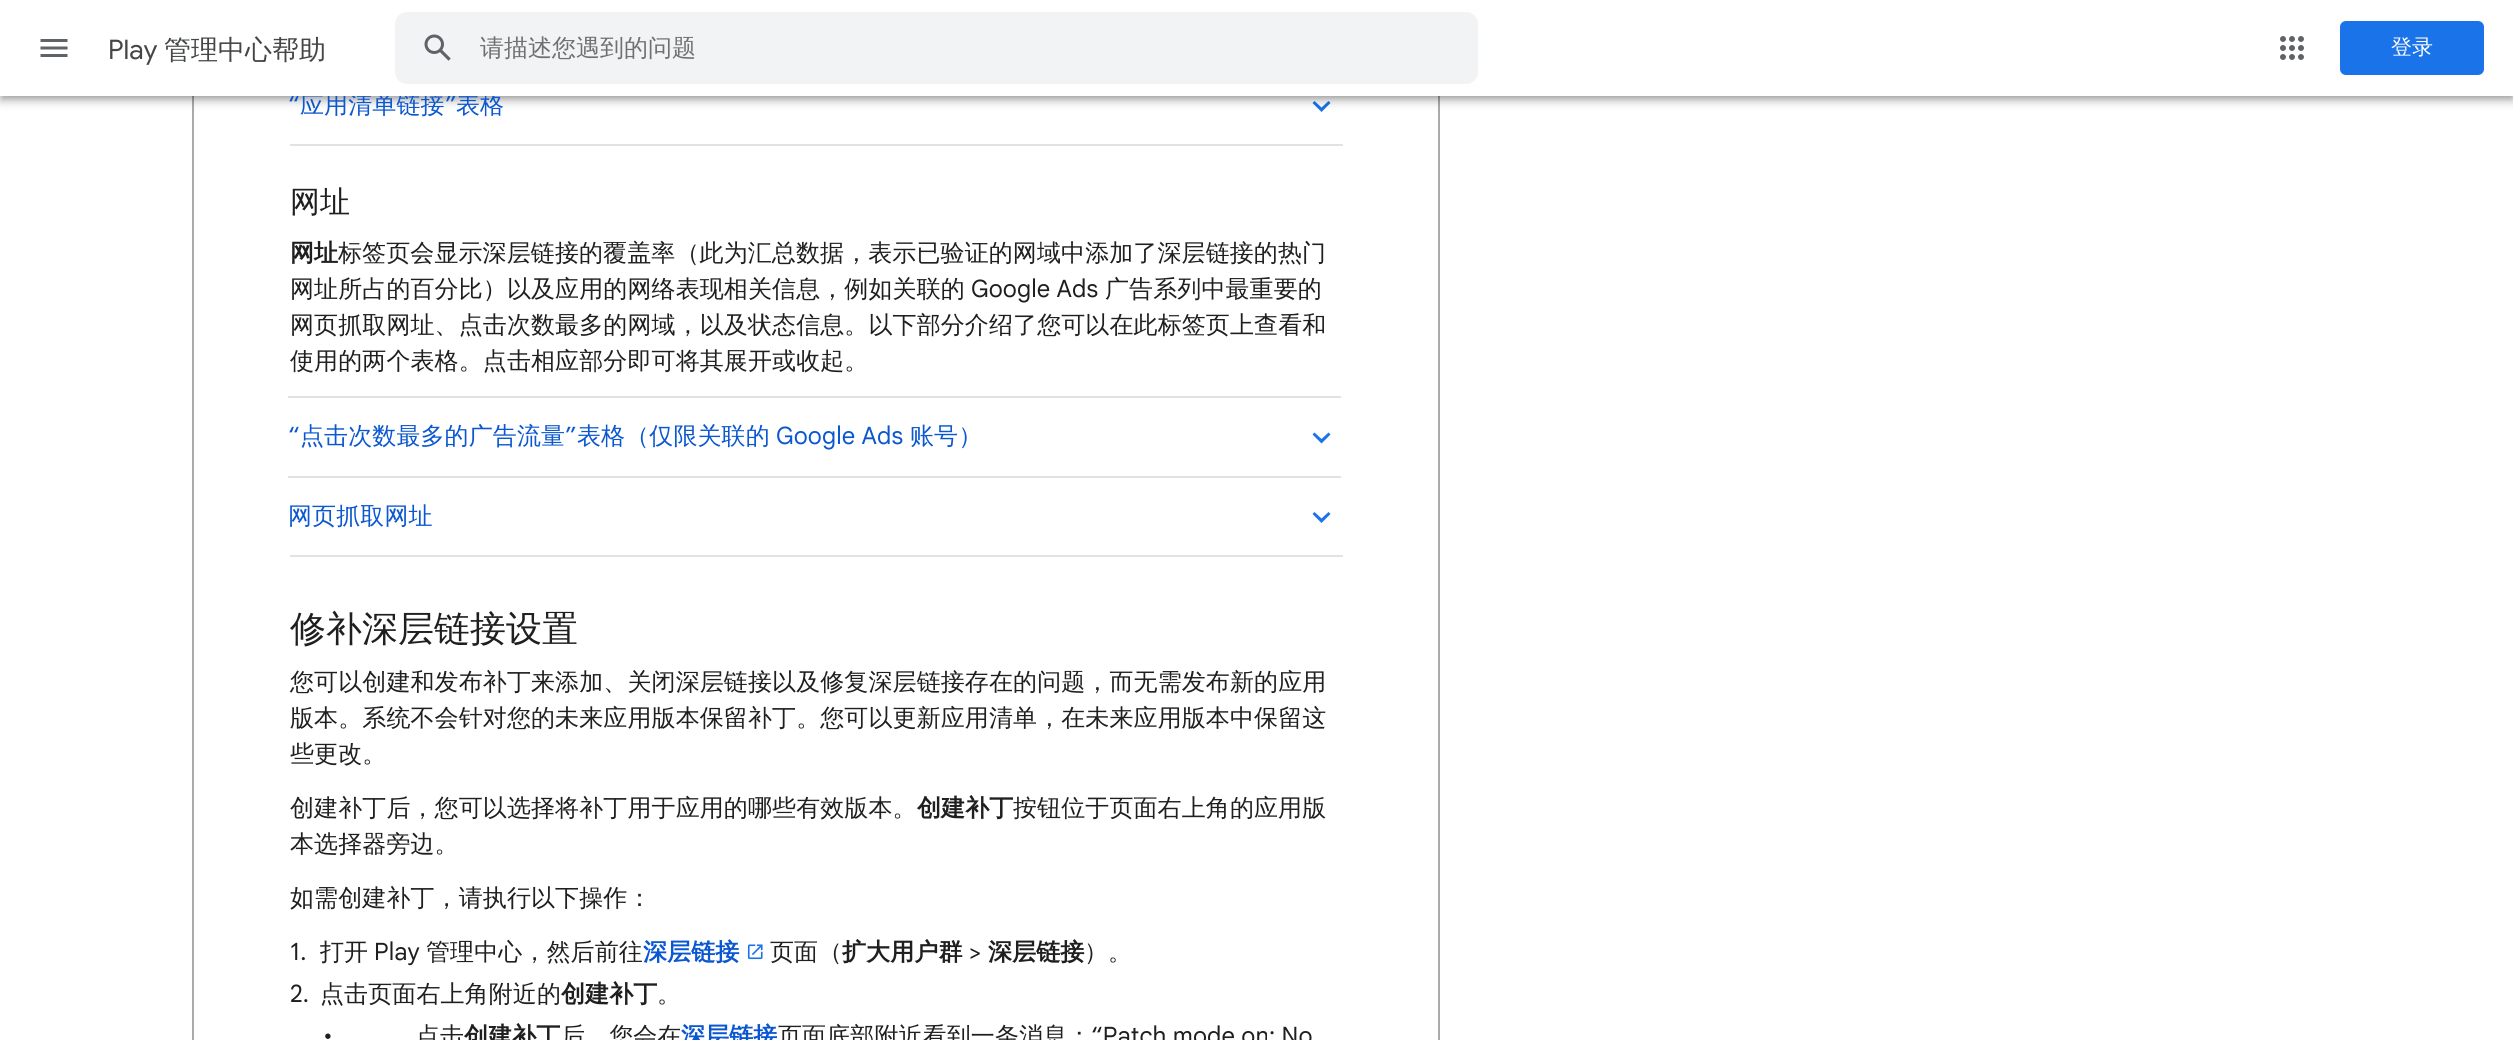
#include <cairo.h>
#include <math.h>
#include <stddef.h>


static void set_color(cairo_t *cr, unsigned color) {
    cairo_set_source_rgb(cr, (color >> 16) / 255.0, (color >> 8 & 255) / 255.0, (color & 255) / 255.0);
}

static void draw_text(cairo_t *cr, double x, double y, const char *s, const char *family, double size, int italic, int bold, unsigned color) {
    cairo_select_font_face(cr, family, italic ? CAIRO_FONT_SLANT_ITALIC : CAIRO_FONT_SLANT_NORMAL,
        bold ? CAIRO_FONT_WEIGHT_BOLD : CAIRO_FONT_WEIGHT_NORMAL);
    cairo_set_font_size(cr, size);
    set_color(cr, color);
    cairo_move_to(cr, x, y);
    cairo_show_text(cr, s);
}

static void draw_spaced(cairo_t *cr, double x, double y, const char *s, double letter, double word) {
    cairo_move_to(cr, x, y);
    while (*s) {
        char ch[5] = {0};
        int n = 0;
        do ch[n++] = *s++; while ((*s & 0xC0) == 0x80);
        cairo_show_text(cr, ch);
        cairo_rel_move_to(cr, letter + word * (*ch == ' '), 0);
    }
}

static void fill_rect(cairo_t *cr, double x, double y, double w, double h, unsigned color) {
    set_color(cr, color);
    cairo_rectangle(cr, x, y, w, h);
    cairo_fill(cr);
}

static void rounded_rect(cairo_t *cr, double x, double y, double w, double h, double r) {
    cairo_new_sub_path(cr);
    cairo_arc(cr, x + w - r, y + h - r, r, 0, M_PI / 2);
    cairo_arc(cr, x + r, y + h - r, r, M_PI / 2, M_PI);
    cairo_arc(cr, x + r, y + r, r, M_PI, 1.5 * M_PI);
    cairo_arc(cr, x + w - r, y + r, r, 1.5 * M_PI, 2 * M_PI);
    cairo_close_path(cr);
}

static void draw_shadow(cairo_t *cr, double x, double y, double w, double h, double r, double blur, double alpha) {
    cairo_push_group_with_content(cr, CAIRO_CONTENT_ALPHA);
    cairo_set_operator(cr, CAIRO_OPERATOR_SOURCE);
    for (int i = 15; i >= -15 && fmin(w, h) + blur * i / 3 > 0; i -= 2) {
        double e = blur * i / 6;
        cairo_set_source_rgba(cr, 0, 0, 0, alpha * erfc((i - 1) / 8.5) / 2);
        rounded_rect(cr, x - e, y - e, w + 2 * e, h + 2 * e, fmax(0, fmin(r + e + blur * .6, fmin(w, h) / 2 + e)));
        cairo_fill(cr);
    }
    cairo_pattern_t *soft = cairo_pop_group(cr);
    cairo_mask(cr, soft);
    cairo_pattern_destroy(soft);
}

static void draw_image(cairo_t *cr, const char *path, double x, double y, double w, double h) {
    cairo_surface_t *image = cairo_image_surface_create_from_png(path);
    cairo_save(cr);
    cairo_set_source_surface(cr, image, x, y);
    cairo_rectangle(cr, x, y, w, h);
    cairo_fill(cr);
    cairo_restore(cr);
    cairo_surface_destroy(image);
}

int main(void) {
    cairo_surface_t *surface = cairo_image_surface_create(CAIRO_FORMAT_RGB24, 2513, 1040);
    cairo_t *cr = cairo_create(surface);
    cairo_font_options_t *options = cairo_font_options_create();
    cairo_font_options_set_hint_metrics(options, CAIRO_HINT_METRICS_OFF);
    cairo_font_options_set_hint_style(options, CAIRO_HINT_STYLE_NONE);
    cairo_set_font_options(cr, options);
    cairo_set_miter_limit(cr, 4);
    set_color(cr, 0xFFFFFF);
    cairo_paint(cr);
    cairo_rectangle(cr, 193, -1, 1246, 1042);
    set_color(cr, 0xA9ACAA);
    cairo_stroke(cr);
    set_color(cr, 0x1A73E8);
    cairo_new_path(cr);
    cairo_move_to(cr, 1314.5, 101);
    cairo_line_to(cr, 1321.5, 107.5);
    cairo_line_to(cr, 1328.5, 101);
    cairo_line_to(cr, 1330.5, 103);
    cairo_line_to(cr, 1321.5, 112);
    cairo_line_to(cr, 1312.5, 103);
    cairo_close_path(cr);
    cairo_fill(cr);
    set_color(cr, 0x000000);
    draw_shadow(cr, 2, 5, 2511, 93, 0, 3, 0.2);
    draw_shadow(cr, 0, 2, 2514, 96, 0, 7.5, 0.12);
    draw_shadow(cr, 0, 6, 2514, 96, 0, 4, 0.14);
    cairo_select_font_face(cr, "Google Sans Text", CAIRO_FONT_SLANT_NORMAL, CAIRO_FONT_WEIGHT_NORMAL);
    cairo_set_font_size(cr, 24);
    set_color(cr, 0x0B57D0);
    draw_spaced(cr, 288, 113, "“", 0.1, 0);
    cairo_select_font_face(cr, "WenQuanYi Zen Hei Medium", CAIRO_FONT_SLANT_NORMAL, CAIRO_FONT_WEIGHT_NORMAL);
    draw_spaced(cr, 300, 113, "应用清单链接", 0.1, 0);
    cairo_select_font_face(cr, "Google Sans Text", CAIRO_FONT_SLANT_NORMAL, CAIRO_FONT_WEIGHT_NORMAL);
    draw_spaced(cr, 445, 113, "”", 0.1, 0);
    cairo_select_font_face(cr, "WenQuanYi Zen Hei Medium", CAIRO_FONT_SLANT_NORMAL, CAIRO_FONT_WEIGHT_NORMAL);
    draw_spaced(cr, 456, 113, "表格", 0.1, 0);
    fill_rect(cr, 0, 0, 2513, 96, 0xFFFFFF);
    draw_image(cr, "assets/img1.png", 40, 39, 28, 18);
    draw_text(cr, 108, 59, "Play", "Google Sans", 27, 0, 0, 0x444746);
    draw_text(cr, 164, 59, "管理中心帮助", "WenQuanYi Zen Hei Medium", 27, 0, 0, 0x444746);
    set_color(cr, 0xF1F3F4);
    rounded_rect(cr, 395, 12, 1083, 72, 12);
    cairo_fill(cr);
    draw_image(cr, "assets/img2.png", 424, 34, 27, 27);
    draw_text(cr, 480, 56, "请描述您遇到的问题", "WenQuanYi Zen Hei Medium", 24, 0, 0, 0x6F7070);
    draw_image(cr, "assets/img3.png", 2280, 36, 24, 24);
    set_color(cr, 0x1A73E8);
    rounded_rect(cr, 2340, 21, 144, 54, 6);
    cairo_fill(cr);
    draw_text(cr, 2391, 54, "登录", "WenQuanYi Zen Hei Medium", 21, 0, 0, 0xFFFFFF);
    fill_rect(cr, 290, 144, 1053, 2, 0xE1E3E1);
    draw_text(cr, 290, 212, "网址", "WenQuanYi Zen Hei Medium", 30, 0, 0, 0x1F1F1F);
    cairo_select_font_face(cr, "WenQuanYi Zen Hei", CAIRO_FONT_SLANT_NORMAL, CAIRO_FONT_WEIGHT_BOLD);
    cairo_set_font_size(cr, 24);
    draw_spaced(cr, 290, 261, "网址", 0.1, 0);
    cairo_select_font_face(cr, "WenQuanYi Zen Hei Medium", CAIRO_FONT_SLANT_NORMAL, CAIRO_FONT_WEIGHT_NORMAL);
    draw_spaced(cr, 338, 261, "标签页会显示深层链接的覆盖率（此为汇总数据，表示已验证的网域中添加了深层链接的热门", 0.1, 0);
    draw_spaced(cr, 290, 297, "网址所占的百分比）以及应用的网络表现相关信息，例如关联的", 0.1, 0);
    cairo_select_font_face(cr, "Google Sans Text", CAIRO_FONT_SLANT_NORMAL, CAIRO_FONT_WEIGHT_NORMAL);
    draw_spaced(cr, 971, 297, "Google Ads", 0.1, 0);
    cairo_select_font_face(cr, "WenQuanYi Zen Hei Medium", CAIRO_FONT_SLANT_NORMAL, CAIRO_FONT_WEIGHT_NORMAL);
    draw_spaced(cr, 1105, 297, "广告系列中最重要的", 0.1, 0);
    draw_spaced(cr, 290, 333, "网页抓取网址、点击次数最多的网域，以及状态信息。以下部分介绍了您可以在此标签页上查看和", 0.1, 0);
    draw_spaced(cr, 290, 369, "使用的两个表格。点击相应部分即可将其展开或收起。", 0.1, 0);
    fill_rect(cr, 288, 396, 1053, 2, 0xE1E3E1);
    cairo_select_font_face(cr, "Google Sans Text", CAIRO_FONT_SLANT_NORMAL, CAIRO_FONT_WEIGHT_NORMAL);
    set_color(cr, 0x0B57D0);
    draw_spaced(cr, 288, 444, "“", 0.1, 0);
    cairo_select_font_face(cr, "WenQuanYi Zen Hei Medium", CAIRO_FONT_SLANT_NORMAL, CAIRO_FONT_WEIGHT_NORMAL);
    draw_spaced(cr, 300, 444, "点击次数最多的广告流量", 0.1, 0);
    cairo_select_font_face(cr, "Google Sans Text", CAIRO_FONT_SLANT_NORMAL, CAIRO_FONT_WEIGHT_NORMAL);
    draw_spaced(cr, 565, 444, "”", 0.1, 0);
    cairo_select_font_face(cr, "WenQuanYi Zen Hei Medium", CAIRO_FONT_SLANT_NORMAL, CAIRO_FONT_WEIGHT_NORMAL);
    draw_spaced(cr, 577, 444, "表格（仅限关联的", 0.1, 0);
    cairo_select_font_face(cr, "Google Sans Text", CAIRO_FONT_SLANT_NORMAL, CAIRO_FONT_WEIGHT_NORMAL);
    draw_spaced(cr, 776, 444, "Google Ads", 0.1, 0);
    cairo_select_font_face(cr, "WenQuanYi Zen Hei Medium", CAIRO_FONT_SLANT_NORMAL, CAIRO_FONT_WEIGHT_NORMAL);
    draw_spaced(cr, 910, 444, "账号）", 0.1, 0);
    set_color(cr, 0x1A73E8);
    cairo_new_path(cr);
    cairo_move_to(cr, 1314.5, 432.5);
    cairo_line_to(cr, 1321.5, 439);
    cairo_line_to(cr, 1328.5, 432.5);
    cairo_line_to(cr, 1330.5, 434.5);
    cairo_line_to(cr, 1321.5, 443.5);
    cairo_line_to(cr, 1312.5, 434.5);
    cairo_close_path(cr);
    cairo_fill(cr);
    fill_rect(cr, 290, 555, 1053, 2, 0xE1E3E1);
    fill_rect(cr, 288, 476, 1053, 2, 0xE1E3E1);
    set_color(cr, 0x0B57D0);
    draw_spaced(cr, 288, 524, "网页抓取网址", 0.1, 0);
    set_color(cr, 0x1A73E8);
    cairo_new_path(cr);
    cairo_move_to(cr, 1314.5, 512);
    cairo_line_to(cr, 1321.5, 518.5);
    cairo_line_to(cr, 1328.5, 512);
    cairo_line_to(cr, 1330.5, 514);
    cairo_line_to(cr, 1321.5, 523);
    cairo_line_to(cr, 1312.5, 514);
    cairo_close_path(cr);
    cairo_fill(cr);
    draw_text(cr, 290, 641, "修补深层链接设置", "WenQuanYi Zen Hei Medium", 36, 0, 0, 0x1F1F1F);
    cairo_set_font_size(cr, 24);
    draw_spaced(cr, 290, 690, "您可以创建和发布补丁来添加、关闭深层链接以及修复深层链接存在的问题，而无需发布新的应用", 0.1, 0);
    draw_spaced(cr, 290, 726, "版本。系统不会针对您的未来应用版本保留补丁。您可以更新应用清单，在未来应用版本中保留这", 0.1, 0);
    draw_spaced(cr, 290, 762, "些更改。", 0.1, 0);
    draw_spaced(cr, 290, 816, "创建补丁后，您可以选择将补丁用于应用的哪些有效版本。", 0.1, 0);
    cairo_select_font_face(cr, "WenQuanYi Zen Hei", CAIRO_FONT_SLANT_NORMAL, CAIRO_FONT_WEIGHT_BOLD);
    draw_spaced(cr, 917, 816, "创建补丁", 0.1, 0);
    cairo_select_font_face(cr, "WenQuanYi Zen Hei Medium", CAIRO_FONT_SLANT_NORMAL, CAIRO_FONT_WEIGHT_NORMAL);
    draw_spaced(cr, 1013, 816, "按钮位于页面右上角的应用版", 0.1, 0);
    draw_spaced(cr, 290, 852, "本选择器旁边。", 0.1, 0);
    draw_spaced(cr, 290, 906, "如需创建补丁，请执行以下操作：", 0.1, 0);
    cairo_select_font_face(cr, "Google Sans Text", CAIRO_FONT_SLANT_NORMAL, CAIRO_FONT_WEIGHT_NORMAL);
    draw_spaced(cr, 290, 960, "1.", 0.1, 0);
    cairo_select_font_face(cr, "WenQuanYi Zen Hei Medium", CAIRO_FONT_SLANT_NORMAL, CAIRO_FONT_WEIGHT_NORMAL);
    draw_spaced(cr, 320, 960, "打开", 0.1, 0);
    cairo_select_font_face(cr, "Google Sans Text", CAIRO_FONT_SLANT_NORMAL, CAIRO_FONT_WEIGHT_NORMAL);
    draw_spaced(cr, 374, 960, "Play", 0.1, 0);
    cairo_select_font_face(cr, "WenQuanYi Zen Hei Medium", CAIRO_FONT_SLANT_NORMAL, CAIRO_FONT_WEIGHT_NORMAL);
    draw_spaced(cr, 426, 960, "管理中心，然后前往", 0.1, 0);
    cairo_select_font_face(cr, "WenQuanYi Zen Hei", CAIRO_FONT_SLANT_NORMAL, CAIRO_FONT_WEIGHT_BOLD);
    set_color(cr, 0x0B57D0);
    draw_spaced(cr, 643, 960, "深层链接", 0.1, 0);
    draw_image(cr, "assets/img4.png", 747, 944, 16, 16);
    cairo_select_font_face(cr, "WenQuanYi Zen Hei Medium", CAIRO_FONT_SLANT_NORMAL, CAIRO_FONT_WEIGHT_NORMAL);
    set_color(cr, 0x1F1F1F);
    draw_spaced(cr, 770, 960, "页面（", 0.1, 0);
    cairo_select_font_face(cr, "WenQuanYi Zen Hei", CAIRO_FONT_SLANT_NORMAL, CAIRO_FONT_WEIGHT_BOLD);
    draw_spaced(cr, 842, 960, "扩大用户群", 0.1, 0);
    cairo_select_font_face(cr, "Google Sans Text", CAIRO_FONT_SLANT_NORMAL, CAIRO_FONT_WEIGHT_NORMAL);
    draw_spaced(cr, 969, 960, ">", 0.1, 0);
    cairo_select_font_face(cr, "WenQuanYi Zen Hei", CAIRO_FONT_SLANT_NORMAL, CAIRO_FONT_WEIGHT_BOLD);
    draw_spaced(cr, 988, 960, "深层链接", 0.1, 0);
    cairo_select_font_face(cr, "WenQuanYi Zen Hei Medium", CAIRO_FONT_SLANT_NORMAL, CAIRO_FONT_WEIGHT_NORMAL);
    draw_spaced(cr, 1084, 960, "）。", 0.1, 0);
    cairo_select_font_face(cr, "Google Sans Text", CAIRO_FONT_SLANT_NORMAL, CAIRO_FONT_WEIGHT_NORMAL);
    draw_spaced(cr, 290, 1002, "2.", 0.1, 0);
    cairo_select_font_face(cr, "WenQuanYi Zen Hei Medium", CAIRO_FONT_SLANT_NORMAL, CAIRO_FONT_WEIGHT_NORMAL);
    draw_spaced(cr, 320, 1002, "点击页面右上角附近的", 0.1, 0);
    cairo_select_font_face(cr, "WenQuanYi Zen Hei", CAIRO_FONT_SLANT_NORMAL, CAIRO_FONT_WEIGHT_BOLD);
    draw_spaced(cr, 561, 1002, "创建补丁", 0.1, 0);
    cairo_select_font_face(cr, "WenQuanYi Zen Hei Medium", CAIRO_FONT_SLANT_NORMAL, CAIRO_FONT_WEIGHT_NORMAL);
    draw_spaced(cr, 657, 1002, "。", 0.1, 0);
    cairo_select_font_face(cr, "Google Sans Text", CAIRO_FONT_SLANT_NORMAL, CAIRO_FONT_WEIGHT_NORMAL);
    draw_spaced(cr, 323, 1044, "•", 0.1, 0);
    cairo_select_font_face(cr, "WenQuanYi Zen Hei Medium", CAIRO_FONT_SLANT_NORMAL, CAIRO_FONT_WEIGHT_NORMAL);
    draw_spaced(cr, 416, 1044, "点击", 0.1, 0);
    cairo_select_font_face(cr, "WenQuanYi Zen Hei", CAIRO_FONT_SLANT_NORMAL, CAIRO_FONT_WEIGHT_BOLD);
    draw_spaced(cr, 464, 1044, "创建补丁", 0.1, 0);
    cairo_select_font_face(cr, "WenQuanYi Zen Hei Medium", CAIRO_FONT_SLANT_NORMAL, CAIRO_FONT_WEIGHT_NORMAL);
    draw_spaced(cr, 561, 1044, "后，您会在", 0.1, 0);
    cairo_select_font_face(cr, "WenQuanYi Zen Hei", CAIRO_FONT_SLANT_NORMAL, CAIRO_FONT_WEIGHT_BOLD);
    set_color(cr, 0x0B57D0);
    draw_spaced(cr, 681, 1044, "深层链接", 0.1, 0);
    cairo_select_font_face(cr, "WenQuanYi Zen Hei Medium", CAIRO_FONT_SLANT_NORMAL, CAIRO_FONT_WEIGHT_NORMAL);
    set_color(cr, 0x1F1F1F);
    draw_spaced(cr, 778, 1044, "页面底部附近看到一条消息：", 0.1, 0);
    cairo_select_font_face(cr, "Google Sans Text", CAIRO_FONT_SLANT_NORMAL, CAIRO_FONT_WEIGHT_NORMAL);
    draw_spaced(cr, 1091, 1044, "“Patch mode on: No", 0.1, 0);
    cairo_surface_write_to_png(surface, "output.png");
    cairo_font_options_destroy(options);
    cairo_destroy(cr);
    cairo_surface_destroy(surface);
    return 0;
}
